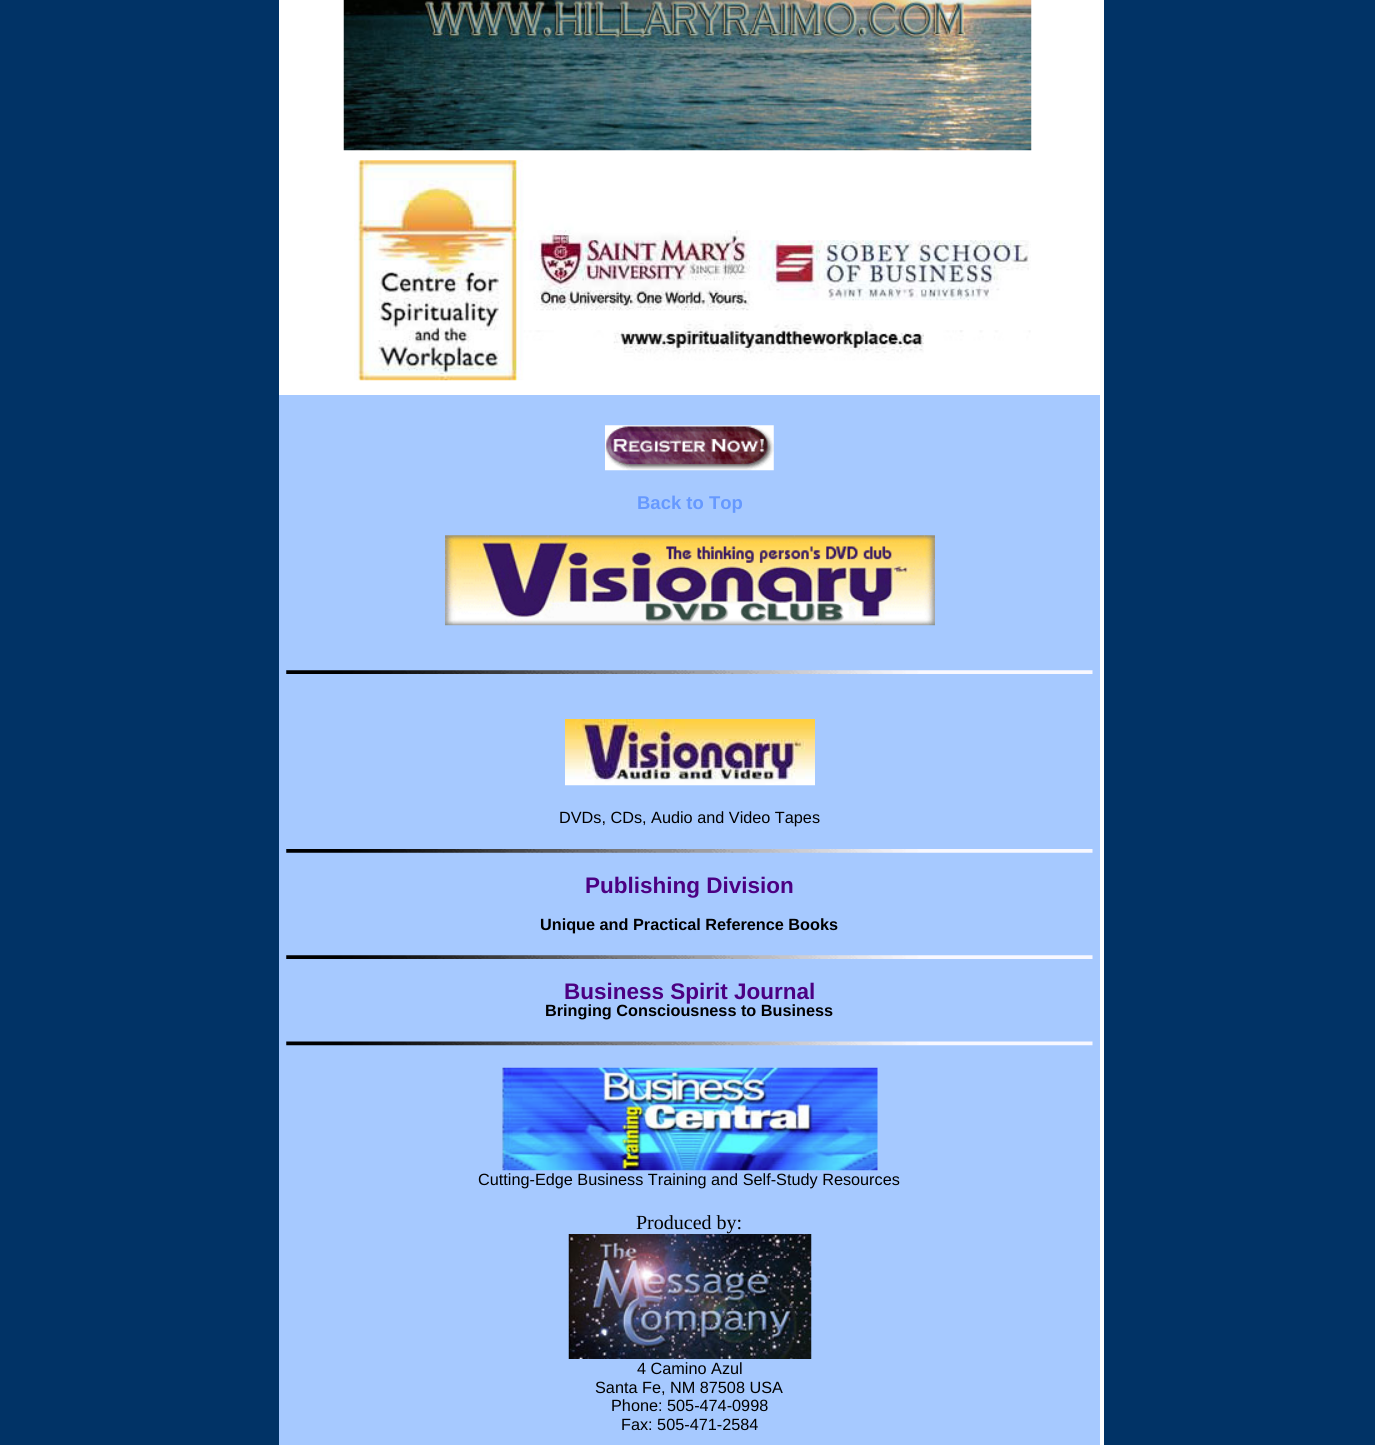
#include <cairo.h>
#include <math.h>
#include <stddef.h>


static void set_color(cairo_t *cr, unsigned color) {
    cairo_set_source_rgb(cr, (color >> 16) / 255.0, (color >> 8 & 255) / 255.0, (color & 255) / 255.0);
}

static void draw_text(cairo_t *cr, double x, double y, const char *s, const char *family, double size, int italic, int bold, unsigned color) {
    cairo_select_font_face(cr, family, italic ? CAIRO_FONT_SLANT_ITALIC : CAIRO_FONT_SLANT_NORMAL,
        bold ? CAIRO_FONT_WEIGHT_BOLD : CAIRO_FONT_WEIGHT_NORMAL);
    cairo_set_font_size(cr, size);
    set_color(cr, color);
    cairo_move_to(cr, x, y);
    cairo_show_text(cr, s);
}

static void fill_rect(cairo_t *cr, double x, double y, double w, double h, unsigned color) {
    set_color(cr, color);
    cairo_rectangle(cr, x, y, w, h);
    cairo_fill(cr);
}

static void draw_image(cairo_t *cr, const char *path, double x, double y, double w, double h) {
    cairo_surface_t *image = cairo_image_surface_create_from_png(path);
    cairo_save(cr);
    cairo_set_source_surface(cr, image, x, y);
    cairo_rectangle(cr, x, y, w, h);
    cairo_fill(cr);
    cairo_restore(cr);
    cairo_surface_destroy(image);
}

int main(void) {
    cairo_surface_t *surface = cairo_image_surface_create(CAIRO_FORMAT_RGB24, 1375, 1445);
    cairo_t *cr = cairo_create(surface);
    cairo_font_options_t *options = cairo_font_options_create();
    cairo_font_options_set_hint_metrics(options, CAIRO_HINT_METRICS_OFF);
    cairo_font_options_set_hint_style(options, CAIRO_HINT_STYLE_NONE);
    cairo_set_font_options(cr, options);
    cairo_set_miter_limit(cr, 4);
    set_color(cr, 0x013366);
    cairo_paint(cr);
    fill_rect(cr, 279, 0, 825, 1445, 0xFFFFFF);
    draw_image(cr, "assets/img1.png", 343, 0, 689, 151);
    draw_image(cr, "assets/img2.png", 354, 160, 677, 221);
    fill_rect(cr, 279, 395, 821, 1050, 0xA6C9FF);
    draw_image(cr, "assets/img3.png", 605, 425, 169, 46);
    draw_text(cr, 637, 509, "Back to Top", "Liberation Sans", 18.5, 0, 1, 0x6699FF);
    draw_image(cr, "assets/img4.png", 445, 535, 490, 91);
    draw_image(cr, "assets/img5.png", 286, 670, 807, 4);
    draw_image(cr, "assets/img6.png", 565, 719, 250, 67);
    draw_text(cr, 559, 823, "DVDs, CDs, Audio and Video Tapes", "Liberation Sans", 16.25, 0, 0, 0x000000);
    draw_image(cr, "assets/img7.png", 286, 849, 807, 4);
    draw_text(cr, 585, 893, "Publishing Division", "Liberation Sans", 22.5, 0, 1, 0x4B0082);
    draw_text(cr, 540, 930, "Unique and Practical Reference Books", "Liberation Sans", 16.25, 0, 1, 0x000000);
    draw_image(cr, "assets/img5.png", 286, 955, 807, 4);
    draw_text(cr, 564, 999, "Business Spirit Journal", "Liberation Sans", 22.5, 0, 1, 0x4B0082);
    draw_text(cr, 545, 1016, "Bringing Consciousness to Business", "Liberation Sans", 16.25, 0, 1, 0x000000);
    draw_image(cr, "assets/img8.png", 286, 1041, 807, 5);
    draw_image(cr, "assets/img9.png", 502, 1067, 376, 104);
    draw_text(cr, 478, 1185, "Cutting-Edge Business Training and Self-Study Resources", "Liberation Sans", 16.25, 0, 0, 0x000000);
    draw_text(cr, 636, 1229, "Produced by:", "Liberation Serif", 20, 0, 0, 0x000000);
    draw_image(cr, "assets/img10.png", 568, 1234, 244, 125);
    draw_text(cr, 637, 1374, "4 Camino Azul", "Liberation Sans", 16.25, 0, 0, 0x000000);
    draw_text(cr, 595, 1393, "Santa Fe, NM 87508 USA", "Liberation Sans", 16.25, 0, 0, 0x000000);
    draw_text(cr, 611, 1411, "Phone: 505-474-0998", "Liberation Sans", 16.25, 0, 0, 0x000000);
    draw_text(cr, 621, 1430, "Fax: 505-471-2584", "Liberation Sans", 16.25, 0, 0, 0x000000);
    cairo_surface_write_to_png(surface, "output.png");
    cairo_font_options_destroy(options);
    cairo_destroy(cr);
    cairo_surface_destroy(surface);
    return 0;
}
